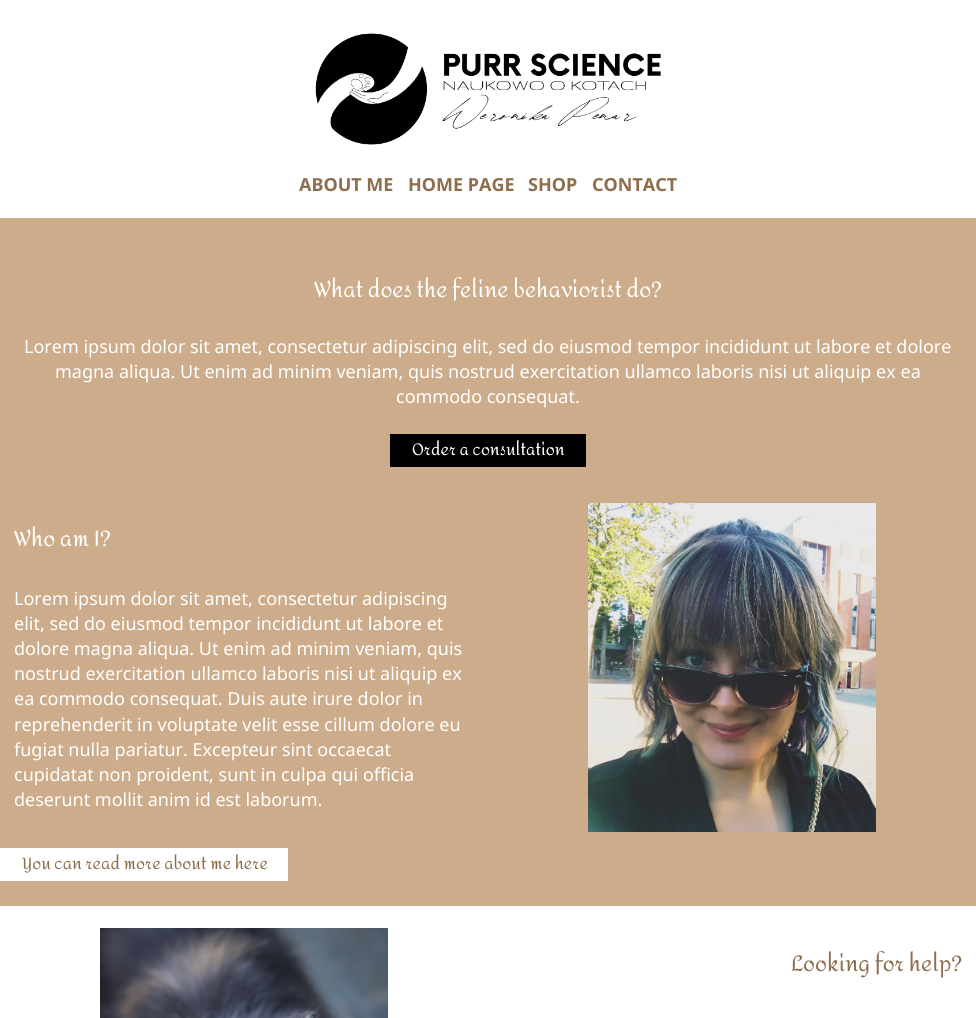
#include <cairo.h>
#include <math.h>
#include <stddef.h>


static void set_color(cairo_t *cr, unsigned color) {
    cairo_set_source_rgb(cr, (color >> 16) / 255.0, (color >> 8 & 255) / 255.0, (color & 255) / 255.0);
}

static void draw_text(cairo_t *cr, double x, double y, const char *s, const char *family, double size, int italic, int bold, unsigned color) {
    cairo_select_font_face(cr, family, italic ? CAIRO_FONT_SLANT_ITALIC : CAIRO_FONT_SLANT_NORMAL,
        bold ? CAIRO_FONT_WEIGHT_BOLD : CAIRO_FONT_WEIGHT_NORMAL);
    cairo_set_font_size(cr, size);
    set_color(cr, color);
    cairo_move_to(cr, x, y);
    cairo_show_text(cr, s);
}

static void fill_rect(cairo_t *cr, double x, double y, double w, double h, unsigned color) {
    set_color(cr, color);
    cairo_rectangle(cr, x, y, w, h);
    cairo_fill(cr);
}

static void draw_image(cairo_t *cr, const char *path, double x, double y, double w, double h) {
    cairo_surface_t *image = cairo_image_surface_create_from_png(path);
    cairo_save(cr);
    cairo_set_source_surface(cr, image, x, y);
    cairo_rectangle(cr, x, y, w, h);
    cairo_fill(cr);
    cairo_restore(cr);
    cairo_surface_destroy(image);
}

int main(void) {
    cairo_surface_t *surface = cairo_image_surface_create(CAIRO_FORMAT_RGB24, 976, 1018);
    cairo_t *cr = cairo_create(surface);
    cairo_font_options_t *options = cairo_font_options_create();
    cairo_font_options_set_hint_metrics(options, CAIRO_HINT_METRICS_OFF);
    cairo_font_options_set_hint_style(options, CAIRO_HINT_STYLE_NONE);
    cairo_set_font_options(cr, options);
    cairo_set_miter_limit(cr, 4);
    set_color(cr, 0xFFFFFF);
    cairo_paint(cr);
    draw_image(cr, "assets/img1.png", 315, 33, 346, 112);
    draw_text(cr, 299, 191, "ABOUT ME", "Noto Sans", 18, 0, 1, 0x8D6F4E);
    draw_text(cr, 408, 191, "HOME PAGE", "Noto Sans", 18, 0, 1, 0x8D6F4E);
    draw_text(cr, 528, 191, "SHOP", "Noto Sans", 18, 0, 1, 0x8D6F4E);
    draw_text(cr, 592, 191, "CONTACT", "Noto Sans", 18, 0, 1, 0x8D6F4E);
    fill_rect(cr, 0, 218, 976, 688, 0xCCAC8A);
    draw_text(cr, 314, 297, "What does the feline behaviorist do?", "Amita", 21.6, 0, 0, 0xFFFFFF);
    draw_text(cr, 24, 353, "Lorem ipsum dolor sit amet, consectetur adipiscing elit, sed do eiusmod tempor incididunt ut labore et dolore", "Noto Sans", 18, 0, 0, 0xFFFFFF);
    draw_text(cr, 55, 378, "magna aliqua. Ut enim ad minim veniam, quis nostrud exercitation ullamco laboris nisi ut aliquip ex ea", "Noto Sans", 18, 0, 0, 0xFFFFFF);
    draw_text(cr, 396, 403, "commodo consequat.", "Noto Sans", 18, 0, 0, 0xFFFFFF);
    fill_rect(cr, 390, 434, 196, 33, 0x000000);
    draw_text(cr, 412, 455, "Order a consultation", "Amita", 16.25, 0, 0, 0xFFFFFF);
    draw_text(cr, 14, 546, "Who am I?", "Amita", 21.6, 0, 0, 0xFFFFFF);
    draw_text(cr, 14, 605, "Lorem ipsum dolor sit amet, consectetur adipiscing", "Noto Sans", 18, 0, 0, 0xFFFFFF);
    draw_text(cr, 14, 630, "elit, sed do eiusmod tempor incididunt ut labore et", "Noto Sans", 18, 0, 0, 0xFFFFFF);
    draw_text(cr, 14, 655, "dolore magna aliqua. Ut enim ad minim veniam, quis", "Noto Sans", 18, 0, 0, 0xFFFFFF);
    draw_text(cr, 14, 680, "nostrud exercitation ullamco laboris nisi ut aliquip ex", "Noto Sans", 18, 0, 0, 0xFFFFFF);
    draw_text(cr, 14, 705, "ea commodo consequat. Duis aute irure dolor in", "Noto Sans", 18, 0, 0, 0xFFFFFF);
    draw_text(cr, 14, 731, "reprehenderit in voluptate velit esse cillum dolore eu", "Noto Sans", 18, 0, 0, 0xFFFFFF);
    draw_text(cr, 14, 756, "fugiat nulla pariatur. Excepteur sint occaecat", "Noto Sans", 18, 0, 0, 0xFFFFFF);
    draw_text(cr, 14, 781, "cupidatat non proident, sunt in culpa qui officia", "Noto Sans", 18, 0, 0, 0xFFFFFF);
    draw_text(cr, 14, 806, "deserunt mollit anim id est laborum.", "Noto Sans", 18, 0, 0, 0xFFFFFF);
    fill_rect(cr, 0, 848, 288, 33, 0xFFFFFF);
    draw_text(cr, 22, 869, "You can read more about me here", "Amita", 16.25, 0, 0, 0x8D6F4E);
    draw_image(cr, "assets/img2.png", 588, 503, 288, 329);
    draw_image(cr, "assets/img3.png", 100, 928, 288, 90);
    draw_text(cr, 791, 971, "Looking for help?", "Amita", 21.6, 0, 0, 0x8D6F4E);
    cairo_surface_write_to_png(surface, "output.png");
    cairo_font_options_destroy(options);
    cairo_destroy(cr);
    cairo_surface_destroy(surface);
    return 0;
}
